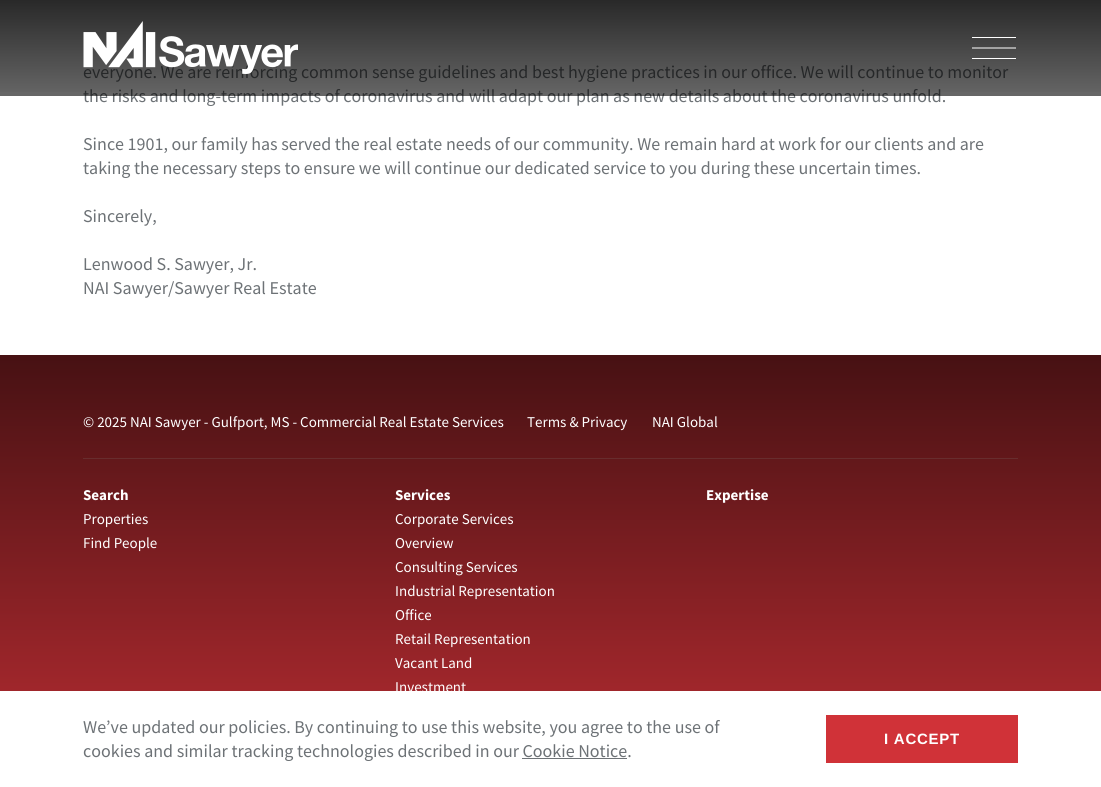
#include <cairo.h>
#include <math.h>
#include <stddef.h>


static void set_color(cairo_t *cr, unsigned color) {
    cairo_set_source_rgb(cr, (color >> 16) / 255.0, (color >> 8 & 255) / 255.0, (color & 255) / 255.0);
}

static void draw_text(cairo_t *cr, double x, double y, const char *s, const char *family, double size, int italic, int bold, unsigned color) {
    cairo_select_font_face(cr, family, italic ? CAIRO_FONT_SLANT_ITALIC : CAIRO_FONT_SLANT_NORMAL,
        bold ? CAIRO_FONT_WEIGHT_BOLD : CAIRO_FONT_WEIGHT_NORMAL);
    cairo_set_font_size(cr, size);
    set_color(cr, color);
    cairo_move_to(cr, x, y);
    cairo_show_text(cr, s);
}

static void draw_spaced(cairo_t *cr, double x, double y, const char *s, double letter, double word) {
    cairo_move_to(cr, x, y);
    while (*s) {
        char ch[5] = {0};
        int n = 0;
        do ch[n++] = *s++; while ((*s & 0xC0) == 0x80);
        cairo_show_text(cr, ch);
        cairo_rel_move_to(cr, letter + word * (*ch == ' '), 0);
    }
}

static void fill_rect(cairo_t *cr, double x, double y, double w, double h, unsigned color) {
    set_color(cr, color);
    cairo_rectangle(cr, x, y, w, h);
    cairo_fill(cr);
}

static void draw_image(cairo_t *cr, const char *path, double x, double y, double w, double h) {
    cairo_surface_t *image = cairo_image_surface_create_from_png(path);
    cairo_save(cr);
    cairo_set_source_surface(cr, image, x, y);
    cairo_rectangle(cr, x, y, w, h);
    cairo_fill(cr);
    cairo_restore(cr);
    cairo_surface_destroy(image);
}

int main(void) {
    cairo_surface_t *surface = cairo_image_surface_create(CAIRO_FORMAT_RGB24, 1101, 787);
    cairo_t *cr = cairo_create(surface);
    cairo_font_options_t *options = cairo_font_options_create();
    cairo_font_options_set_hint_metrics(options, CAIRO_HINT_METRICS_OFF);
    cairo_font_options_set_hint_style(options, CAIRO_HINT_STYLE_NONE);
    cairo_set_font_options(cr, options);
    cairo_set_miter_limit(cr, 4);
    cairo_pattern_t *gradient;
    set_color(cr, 0xFFFFFF);
    cairo_paint(cr);
    gradient = cairo_pattern_create_linear(551, 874, 551, 87);
    cairo_pattern_add_color_stop_rgba(gradient, 0, 0.816, 0.196, 0.22, 1);
    cairo_pattern_add_color_stop_rgba(gradient, 1, 0, 0, 0, 1);
    cairo_set_source(cr, gradient);
    cairo_pattern_destroy(gradient);
    cairo_rectangle(cr, 0, 355, 1101, 336);
    cairo_fill(cr);
    draw_text(cr, 83, 78, "everyone. We are reinforcing common sense guidelines and best hygiene practices in our office. We will continue to monitor", "Source Sans Pro", 18, 0, 0, 0x6D7276);
    draw_text(cr, 83, 102, "the risks and long-term impacts of coronavirus and will adapt our plan as new details about the coronavirus unfold.", "Source Sans Pro", 18, 0, 0, 0x6D7276);
    cairo_set_source_rgba(cr, 0, 0, 0, 0.6);
    cairo_rectangle(cr, 0, 0, 1101, 96);
    cairo_fill(cr);
    gradient = cairo_pattern_create_linear(551, 96, 551, 0);
    cairo_pattern_add_color_stop_rgba(gradient, 0, 0, 0, 0, 0);
    cairo_pattern_add_color_stop_rgba(gradient, 1, 0, 0, 0, 0.6);
    cairo_set_source(cr, gradient);
    cairo_pattern_destroy(gradient);
    cairo_rectangle(cr, 0, 0, 1101, 92);
    cairo_fill(cr);
    draw_image(cr, "assets/img1.png", 83, 21, 215, 53);
    fill_rect(cr, 972, 37, 44, 1, 0xFFFFFF);
    cairo_new_path(cr);
    cairo_move_to(cr, 1015.5, 48);
    cairo_line_to(cr, 972.5, 48);
    cairo_set_line_width(cr, 1);
    cairo_set_line_cap(cr, CAIRO_LINE_CAP_SQUARE);
    cairo_stroke(cr);
    fill_rect(cr, 972, 58, 44, 1, 0xFFFFFF);
    draw_text(cr, 83, 150, "Since 1901, our family has served the real estate needs of our community. We remain hard at work for our clients and are", "Source Sans Pro", 18, 0, 0, 0x6D7276);
    draw_text(cr, 83, 174, "taking the necessary steps to ensure we will continue our dedicated service to you during these uncertain times.", "Source Sans Pro", 18, 0, 0, 0x6D7276);
    draw_text(cr, 83, 222, "Sincerely,", "Source Sans Pro", 18, 0, 0, 0x6D7276);
    draw_text(cr, 83, 270, "Lenwood S. Sawyer, Jr.", "Source Sans Pro", 18, 0, 0, 0x6D7276);
    draw_text(cr, 83, 294, "NAI Sawyer/Sawyer Real Estate", "Source Sans Pro", 18, 0, 0, 0x6D7276);
    draw_text(cr, 83, 427, "© 2025 NAI Sawyer - Gulfport, MS - Commercial Real Estate Services", "Source Sans Pro", 15, 0, 0, 0xFFFFFF);
    draw_text(cr, 527, 427, "Terms & Privacy", "Source Sans Pro", 15, 0, 0, 0xFFFFFF);
    draw_text(cr, 652, 427, "NAI Global", "Source Sans Pro", 15, 0, 0, 0xFFFFFF);
    fill_rect(cr, 83, 458, 935, 1, 0x682D2E);
    draw_text(cr, 83, 500, "Search", "Source Sans Pro", 15, 0, 1, 0xFFFFFF);
    draw_text(cr, 83, 524, "Properties", "Source Sans Pro", 15, 0, 0, 0xFFFFFF);
    draw_text(cr, 83, 548, "Find People", "Source Sans Pro", 15, 0, 0, 0xFFFFFF);
    draw_text(cr, 395, 500, "Services", "Source Sans Pro", 15, 0, 1, 0xFFFFFF);
    draw_text(cr, 395, 524, "Corporate Services", "Source Sans Pro", 15, 0, 0, 0xFFFFFF);
    draw_text(cr, 395, 548, "Overview", "Source Sans Pro", 15, 0, 0, 0xFFFFFF);
    draw_text(cr, 395, 572, "Consulting Services", "Source Sans Pro", 15, 0, 0, 0xFFFFFF);
    draw_text(cr, 395, 596, "Industrial Representation", "Source Sans Pro", 15, 0, 0, 0xFFFFFF);
    draw_text(cr, 395, 620, "Office", "Source Sans Pro", 15, 0, 0, 0xFFFFFF);
    draw_text(cr, 395, 644, "Retail Representation", "Source Sans Pro", 15, 0, 0, 0xFFFFFF);
    draw_text(cr, 395, 668, "Vacant Land", "Source Sans Pro", 15, 0, 0, 0xFFFFFF);
    draw_text(cr, 395, 692, "Investment", "Source Sans Pro", 15, 0, 0, 0xFFFFFF);
    draw_text(cr, 706, 500, "Expertise", "Source Sans Pro", 15, 0, 1, 0xFFFFFF);
    draw_text(cr, 83, 733, "We’ve updated our policies. By continuing to use this website, you agree to the use of", "Source Sans Pro", 18, 0, 0, 0x6D7276);
    draw_text(cr, 83, 757, "cookies and similar tracking technologies described in our Cookie Notice.", "Source Sans Pro", 18, 0, 0, 0x6D7276);
    fill_rect(cr, 522, 758, 105, 1, 0x6D7276);
    fill_rect(cr, 826, 715, 192, 48, 0xD03238);
    cairo_select_font_face(cr, "Liberation Sans", CAIRO_FONT_SLANT_NORMAL, CAIRO_FONT_WEIGHT_BOLD);
    cairo_set_font_size(cr, 15);
    set_color(cr, 0xFFFFFF);
    draw_spaced(cr, 884, 744, "I ACCEPT", 0.75, 0);
    cairo_surface_write_to_png(surface, "output.png");
    cairo_font_options_destroy(options);
    cairo_destroy(cr);
    cairo_surface_destroy(surface);
    return 0;
}
